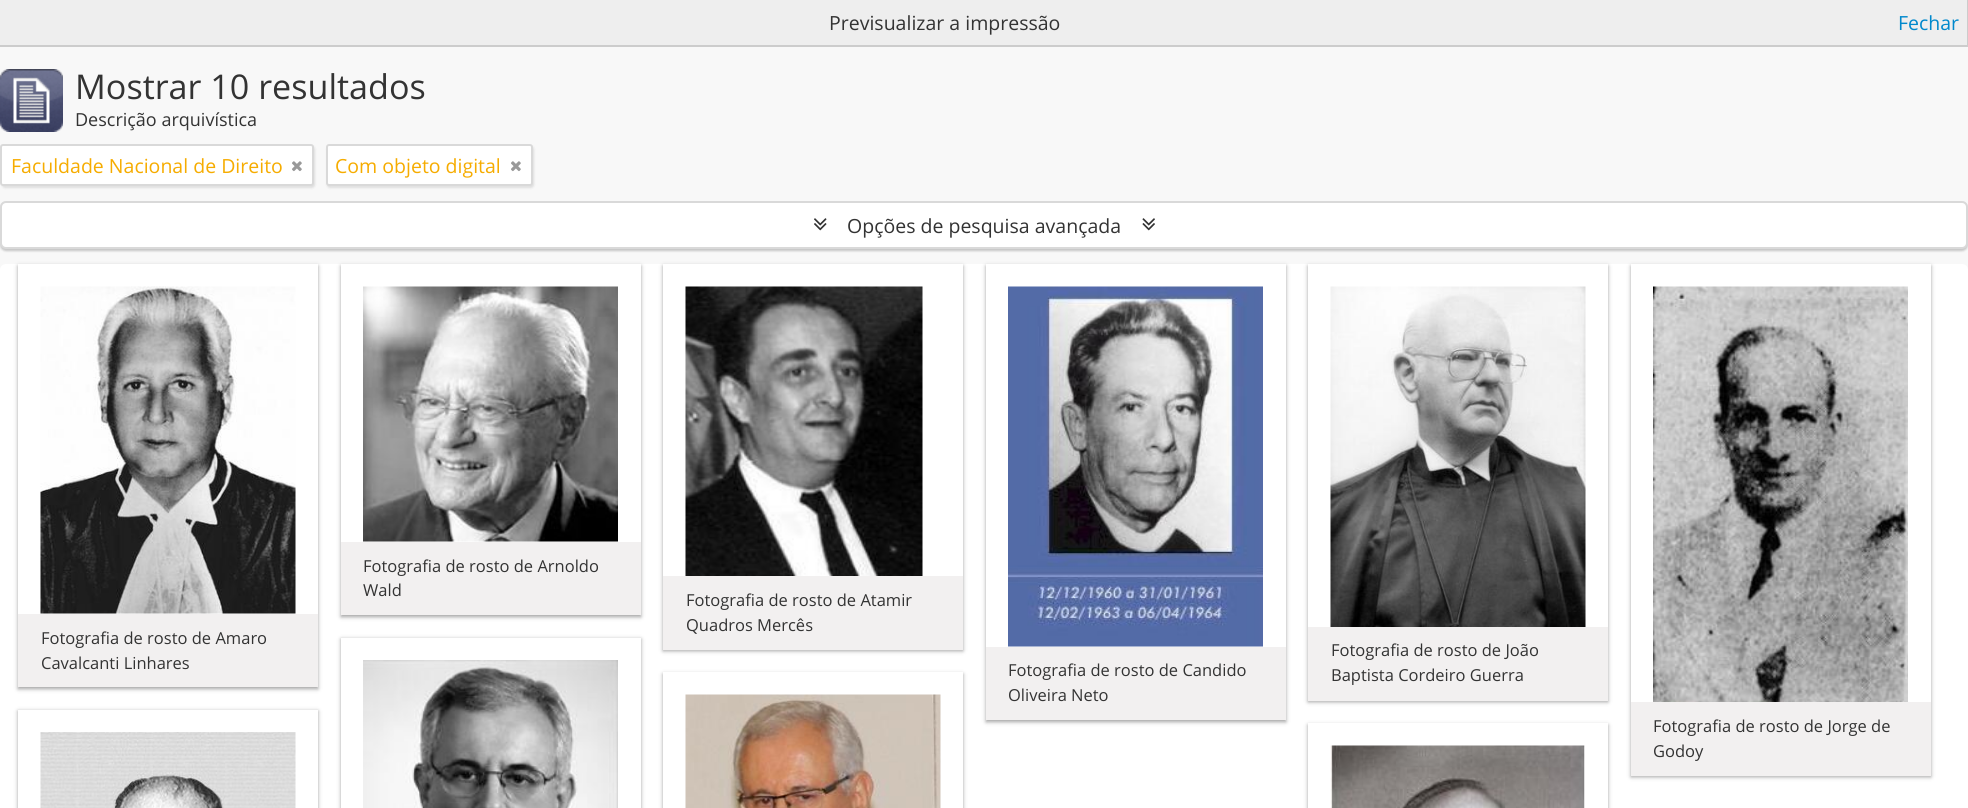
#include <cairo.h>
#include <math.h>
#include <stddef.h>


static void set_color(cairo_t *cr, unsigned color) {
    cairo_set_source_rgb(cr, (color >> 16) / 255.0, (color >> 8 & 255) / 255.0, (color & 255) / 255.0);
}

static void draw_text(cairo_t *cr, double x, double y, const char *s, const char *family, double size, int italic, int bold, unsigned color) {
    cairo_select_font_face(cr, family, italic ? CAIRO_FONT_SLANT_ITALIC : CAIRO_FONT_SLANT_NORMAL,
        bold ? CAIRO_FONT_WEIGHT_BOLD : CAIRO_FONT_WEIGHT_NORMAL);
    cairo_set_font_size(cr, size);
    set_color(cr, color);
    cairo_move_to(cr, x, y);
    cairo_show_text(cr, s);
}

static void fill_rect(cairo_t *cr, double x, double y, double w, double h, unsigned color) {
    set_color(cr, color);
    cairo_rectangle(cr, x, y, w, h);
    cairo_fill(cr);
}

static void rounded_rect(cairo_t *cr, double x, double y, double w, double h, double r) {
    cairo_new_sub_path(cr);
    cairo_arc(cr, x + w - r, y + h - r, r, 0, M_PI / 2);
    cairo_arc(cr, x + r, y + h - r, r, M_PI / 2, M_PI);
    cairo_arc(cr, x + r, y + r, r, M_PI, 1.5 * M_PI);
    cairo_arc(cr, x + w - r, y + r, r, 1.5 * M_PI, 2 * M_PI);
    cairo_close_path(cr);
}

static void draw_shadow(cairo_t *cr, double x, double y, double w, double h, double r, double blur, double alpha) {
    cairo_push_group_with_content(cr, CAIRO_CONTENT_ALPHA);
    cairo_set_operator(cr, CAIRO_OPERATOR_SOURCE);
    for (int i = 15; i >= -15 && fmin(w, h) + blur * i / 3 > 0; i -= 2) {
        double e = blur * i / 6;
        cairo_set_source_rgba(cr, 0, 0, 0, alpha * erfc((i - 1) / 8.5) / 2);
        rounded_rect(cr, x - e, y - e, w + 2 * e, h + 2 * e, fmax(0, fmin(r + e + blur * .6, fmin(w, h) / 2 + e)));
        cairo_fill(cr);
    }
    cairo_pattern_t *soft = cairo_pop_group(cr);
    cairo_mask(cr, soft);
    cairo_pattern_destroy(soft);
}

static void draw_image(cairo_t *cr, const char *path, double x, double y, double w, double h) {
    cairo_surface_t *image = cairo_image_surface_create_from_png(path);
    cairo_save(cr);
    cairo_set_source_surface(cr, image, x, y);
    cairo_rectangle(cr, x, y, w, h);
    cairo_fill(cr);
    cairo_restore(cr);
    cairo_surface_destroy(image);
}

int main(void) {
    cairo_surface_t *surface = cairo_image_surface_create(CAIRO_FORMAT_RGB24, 1968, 808);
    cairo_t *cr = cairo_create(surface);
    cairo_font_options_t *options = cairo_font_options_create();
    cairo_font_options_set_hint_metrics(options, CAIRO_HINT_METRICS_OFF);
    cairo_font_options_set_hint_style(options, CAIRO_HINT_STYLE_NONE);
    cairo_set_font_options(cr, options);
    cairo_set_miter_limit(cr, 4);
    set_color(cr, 0xF8F8F8);
    cairo_paint(cr);
    fill_rect(cr, 0, 0, 1967, 45, 0xEEEEEE);
    fill_rect(cr, 1967, 0, 1, 47, 0xCCCCCC);
    fill_rect(cr, 0, 45, 1968, 2, 0xCCCCCC);
    draw_text(cr, 829, 30, "Previsualizar a impressão", "Open Sans", 19.5, 0, 0, 0x333333);
    draw_text(cr, 1898, 30, "Fechar", "Open Sans", 19.5, 0, 0, 0x0088CC);
    draw_image(cr, "assets/img1.png", 0, 69, 63, 63);
    draw_text(cr, 75, 99, "Mostrar 10 resultados", "Open Sans", 34.1, 0, 0, 0x333333);
    draw_text(cr, 75, 126, "Descrição arquivística", "Open Sans", 18, 0, 0, 0x333333);
    set_color(cr, 0x000000);
    draw_shadow(cr, 2, 146, 313, 42, 3, 1, 0.1);
    set_color(cr, 0xFFFFFF);
    rounded_rect(cr, 1, 145, 312, 40, 2);
    cairo_fill_preserve(cr);
    set_color(cr, 0xD9D9D9);
    cairo_stroke(cr);
    draw_text(cr, 11, 173, "Faculdade Nacional de Direito", "Open Sans", 19.5, 0, 0, 0xF6AC00);
    draw_image(cr, "assets/img2.png", 292, 161, 10, 11);
    set_color(cr, 0x000000);
    draw_shadow(cr, 327, 146, 207, 42, 3, 1, 0.1);
    set_color(cr, 0xFFFFFF);
    rounded_rect(cr, 327, 145, 205, 40, 2);
    cairo_fill_preserve(cr);
    set_color(cr, 0xD9D9D9);
    cairo_stroke(cr);
    draw_text(cr, 335, 173, "Com objeto digital", "Open Sans", 19.5, 0, 0, 0xF6AC00);
    draw_image(cr, "assets/img2.png", 511, 161, 10, 11);
    set_color(cr, 0x000000);
    draw_shadow(cr, 0, 203, 1968, 48, 6, 1, 0.2);
    set_color(cr, 0xFFFFFF);
    rounded_rect(cr, 1, 202, 1966, 46, 5);
    cairo_fill_preserve(cr);
    set_color(cr, 0xD9D9D9);
    cairo_stroke(cr);
    draw_image(cr, "assets/img3.png", 814, 218, 13, 13);
    draw_text(cr, 847, 233, "Opções de pesquisa avançada", "Open Sans", 19.5, 0, 0, 0x333333);
    draw_image(cr, "assets/img4.png", 1142, 218, 13, 13);
    set_color(cr, 0xFFFFFF);
    rounded_rect(cr, 0, 264, 1968, 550, 6);
    cairo_fill(cr);
    set_color(cr, 0x191919);
    draw_shadow(cr, 341, 266, 300, 351, 0, 2, 0.4);
    fill_rect(cr, 341, 264, 300, 278, 0xFFFFFF);
    draw_image(cr, "assets/img5.png", 363, 286, 255, 256);
    fill_rect(cr, 341, 542, 300, 73, 0xF2F0F0);
    draw_text(cr, 363, 572, "Fotografia de rosto de Arnoldo", "Open Sans", 16.5, 0, 0, 0x333333);
    draw_text(cr, 363, 596, "Wald", "Open Sans", 16.5, 0, 0, 0x333333);
    set_color(cr, 0x191919);
    draw_shadow(cr, 663, 266, 300, 385, 0, 2, 0.4);
    fill_rect(cr, 663, 264, 300, 312, 0xFFFFFF);
    draw_image(cr, "assets/img6.png", 685, 286, 238, 290);
    fill_rect(cr, 663, 576, 300, 74, 0xF2F0F0);
    draw_text(cr, 686, 606, "Fotografia de rosto de Atamir", "Open Sans", 16.5, 0, 0, 0x333333);
    draw_text(cr, 686, 631, "Quadros Mercês", "Open Sans", 16.5, 0, 0, 0x333333);
    cairo_save(cr);
    cairo_set_fill_rule(cr, CAIRO_FILL_RULE_EVEN_ODD);
    cairo_new_path(cr);
    cairo_move_to(cr, 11, 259);
    cairo_line_to(cr, 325, 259);
    cairo_line_to(cr, 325, 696);
    cairo_line_to(cr, 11, 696);
    cairo_close_path(cr);
    cairo_move_to(cr, 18, 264);
    cairo_line_to(cr, 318, 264);
    cairo_line_to(cr, 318, 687);
    cairo_line_to(cr, 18, 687);
    cairo_close_path(cr);
    cairo_clip(cr);
    set_color(cr, 0x191919);
    draw_shadow(cr, 18, 266, 300, 423, 0, 2, 0.4);
    cairo_restore(cr);
    draw_image(cr, "assets/img7.png", 40, 286, 256, 328);
    fill_rect(cr, 18, 614, 300, 73, 0xF2F0F0);
    draw_text(cr, 41, 644, "Fotografia de rosto de Amaro", "Open Sans", 16.5, 0, 0, 0x333333);
    draw_text(cr, 41, 669, "Cavalcanti Linhares", "Open Sans", 16.5, 0, 0, 0x333333);
    set_color(cr, 0x191919);
    draw_shadow(cr, 341, 639, 300, 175, 0, 2, 0.4);
    fill_rect(cr, 341, 638, 300, 170, 0xFFFFFF);
    draw_image(cr, "assets/img8.png", 363, 660, 255, 148);
    cairo_save(cr);
    cairo_set_fill_rule(cr, CAIRO_FILL_RULE_EVEN_ODD);
    cairo_new_path(cr);
    cairo_move_to(cr, 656, 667);
    cairo_line_to(cr, 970, 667);
    cairo_line_to(cr, 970, 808);
    cairo_line_to(cr, 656, 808);
    cairo_close_path(cr);
    cairo_move_to(cr, 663, 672);
    cairo_line_to(cr, 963, 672);
    cairo_line_to(cr, 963, 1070);
    cairo_line_to(cr, 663, 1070);
    cairo_close_path(cr);
    cairo_clip(cr);
    set_color(cr, 0x191919);
    draw_shadow(cr, 663, 674, 300, 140, 0, 2, 0.4);
    cairo_restore(cr);
    draw_image(cr, "assets/img9.png", 685, 694, 256, 114);
    set_color(cr, 0x191919);
    draw_shadow(cr, 986, 266, 300, 456, 0, 2, 0.4);
    fill_rect(cr, 986, 264, 300, 383, 0xFFFFFF);
    draw_image(cr, "assets/img10.png", 1008, 286, 255, 361);
    fill_rect(cr, 986, 647, 300, 73, 0xF2F0F0);
    draw_text(cr, 1008, 676, "Fotografia de rosto de Candido", "Open Sans", 16.5, 0, 0, 0x333333);
    draw_text(cr, 1008, 701, "Oliveira Neto", "Open Sans", 16.5, 0, 0, 0x333333);
    set_color(cr, 0x191919);
    draw_shadow(cr, 1308, 266, 300, 436, 0, 2, 0.4);
    fill_rect(cr, 1308, 264, 300, 363, 0xFFFFFF);
    draw_image(cr, "assets/img11.png", 1330, 286, 256, 341);
    fill_rect(cr, 1308, 627, 300, 74, 0xF2F0F0);
    draw_text(cr, 1331, 656, "Fotografia de rosto de João", "Open Sans", 16.5, 0, 0, 0x333333);
    draw_text(cr, 1331, 681, "Baptista Cordeiro Guerra", "Open Sans", 16.5, 0, 0, 0x333333);
    cairo_save(cr);
    cairo_set_fill_rule(cr, CAIRO_FILL_RULE_EVEN_ODD);
    cairo_new_path(cr);
    cairo_move_to(cr, 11, 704);
    cairo_line_to(cr, 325, 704);
    cairo_line_to(cr, 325, 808);
    cairo_line_to(cr, 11, 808);
    cairo_close_path(cr);
    cairo_move_to(cr, 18, 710);
    cairo_line_to(cr, 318, 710);
    cairo_line_to(cr, 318, 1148);
    cairo_line_to(cr, 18, 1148);
    cairo_close_path(cr);
    cairo_clip(cr);
    set_color(cr, 0x191919);
    draw_shadow(cr, 18, 711, 300, 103, 0, 2, 0.4);
    cairo_restore(cr);
    draw_image(cr, "assets/img12.png", 40, 732, 256, 76);
    cairo_save(cr);
    cairo_set_fill_rule(cr, CAIRO_FILL_RULE_EVEN_ODD);
    cairo_new_path(cr);
    cairo_move_to(cr, 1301, 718);
    cairo_line_to(cr, 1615, 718);
    cairo_line_to(cr, 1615, 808);
    cairo_line_to(cr, 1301, 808);
    cairo_close_path(cr);
    cairo_move_to(cr, 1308, 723);
    cairo_line_to(cr, 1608, 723);
    cairo_line_to(cr, 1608, 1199);
    cairo_line_to(cr, 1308, 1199);
    cairo_close_path(cr);
    cairo_clip(cr);
    set_color(cr, 0x191919);
    draw_shadow(cr, 1308, 725, 300, 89, 0, 2, 0.4);
    cairo_restore(cr);
    draw_image(cr, "assets/img13.png", 1330, 745, 255, 63);
    set_color(cr, 0x191919);
    draw_shadow(cr, 1631, 266, 300, 511, 0, 2, 0.4);
    fill_rect(cr, 1631, 264, 300, 438, 0xFFFFFF);
    draw_image(cr, "assets/img14.png", 1653, 286, 255, 416);
    fill_rect(cr, 1631, 702, 300, 74, 0xF2F0F0);
    draw_text(cr, 1653, 732, "Fotografia de rosto de Jorge de", "Open Sans", 16.5, 0, 0, 0x333333);
    draw_text(cr, 1653, 757, "Godoy", "Open Sans", 16.5, 0, 0, 0x333333);
    cairo_surface_write_to_png(surface, "output.png");
    cairo_font_options_destroy(options);
    cairo_destroy(cr);
    cairo_surface_destroy(surface);
    return 0;
}
